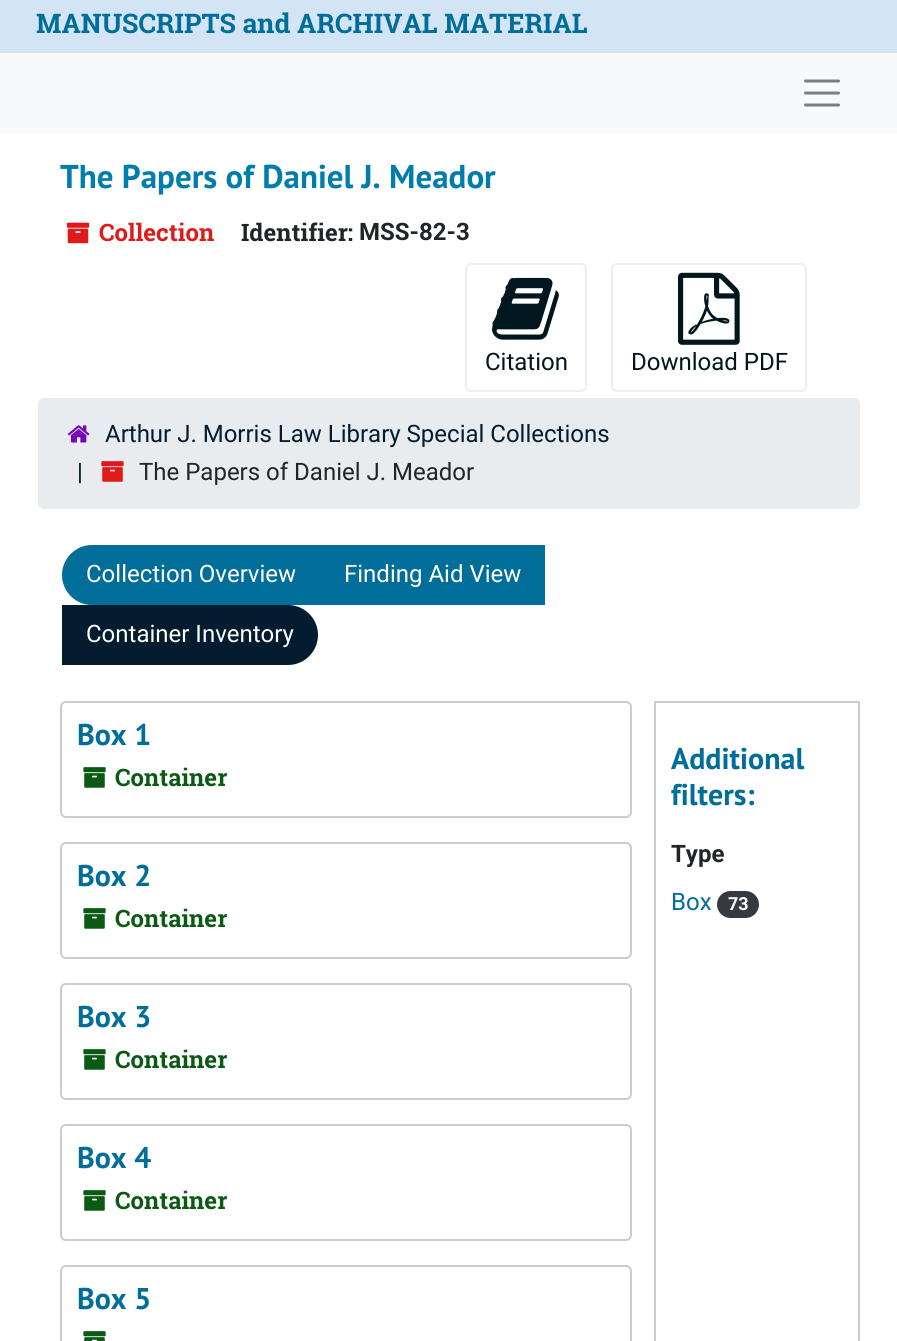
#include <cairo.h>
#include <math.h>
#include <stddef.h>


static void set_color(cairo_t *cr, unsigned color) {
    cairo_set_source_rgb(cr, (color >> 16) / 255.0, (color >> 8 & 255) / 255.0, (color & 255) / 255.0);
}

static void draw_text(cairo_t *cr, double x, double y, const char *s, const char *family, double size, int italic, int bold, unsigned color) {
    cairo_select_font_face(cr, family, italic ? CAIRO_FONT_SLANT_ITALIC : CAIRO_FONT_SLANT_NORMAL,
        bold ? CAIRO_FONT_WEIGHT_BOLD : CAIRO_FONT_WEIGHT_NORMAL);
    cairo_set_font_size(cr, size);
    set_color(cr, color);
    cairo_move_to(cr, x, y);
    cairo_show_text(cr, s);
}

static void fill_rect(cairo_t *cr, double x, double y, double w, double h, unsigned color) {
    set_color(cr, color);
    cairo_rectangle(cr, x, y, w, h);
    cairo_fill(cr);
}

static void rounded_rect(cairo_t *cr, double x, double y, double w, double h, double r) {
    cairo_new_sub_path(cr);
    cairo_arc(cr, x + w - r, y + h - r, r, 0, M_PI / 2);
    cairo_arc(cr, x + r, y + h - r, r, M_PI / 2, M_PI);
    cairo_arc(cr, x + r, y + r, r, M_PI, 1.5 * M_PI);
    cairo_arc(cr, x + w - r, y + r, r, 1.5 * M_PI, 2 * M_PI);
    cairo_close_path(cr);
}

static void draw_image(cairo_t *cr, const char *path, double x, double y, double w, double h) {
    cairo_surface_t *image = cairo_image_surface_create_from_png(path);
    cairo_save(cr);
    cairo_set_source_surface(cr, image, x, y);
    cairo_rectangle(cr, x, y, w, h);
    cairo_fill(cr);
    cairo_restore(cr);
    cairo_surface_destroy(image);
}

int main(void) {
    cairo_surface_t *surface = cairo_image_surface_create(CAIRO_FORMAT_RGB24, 897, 1341);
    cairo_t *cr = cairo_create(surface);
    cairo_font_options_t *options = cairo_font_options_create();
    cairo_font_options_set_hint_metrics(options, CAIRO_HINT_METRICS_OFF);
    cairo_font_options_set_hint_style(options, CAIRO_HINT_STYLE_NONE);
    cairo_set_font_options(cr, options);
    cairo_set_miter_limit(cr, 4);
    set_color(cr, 0xFFFFFF);
    cairo_paint(cr);
    fill_rect(cr, 0, 0, 897, 53, 0xD3E5F5);
    draw_text(cr, 36, 33, "MANUSCRIPTS and ARCHIVAL MATERIAL", "Roboto Slab", 27, 0, 1, 0x006E99);
    fill_rect(cr, 0, 53, 897, 81, 0xF8F9FA);
    cairo_new_path(cr);
    cairo_move_to(cr, 805.5, 81);
    cairo_line_to(cr, 838.5, 81);
    cairo_move_to(cr, 805.5, 93);
    cairo_line_to(cr, 838.5, 93);
    cairo_move_to(cr, 805.5, 105);
    cairo_line_to(cr, 838.5, 105);
    set_color(cr, 0x7C7D7D);
    cairo_set_line_width(cr, 3);
    cairo_set_line_cap(cr, CAIRO_LINE_CAP_ROUND);
    cairo_stroke(cr);
    draw_text(cr, 60, 188, "The Papers of Daniel J. Meador", "PT Sans", 33, 0, 1, 0x007CAD);
    draw_image(cr, "assets/img1.png", 66, 222, 24, 22);
    draw_text(cr, 99, 241, "Collection", "Roboto Slab", 24, 0, 1, 0xE01919);
    draw_text(cr, 241, 241, "Identifier:", "Roboto Slab", 24, 0, 1, 0x212529);
    draw_text(cr, 359, 240, "MSS-82-3", "Roboto", 24, 0, 1, 0x212529);
    rounded_rect(cr, 466, 264, 120, 127, 5);
    set_color(cr, 0xEEEEEE);
    cairo_set_line_width(cr, 2);
    cairo_set_line_cap(cr, CAIRO_LINE_CAP_BUTT);
    cairo_stroke(cr);
    draw_image(cr, "assets/img2.png", 492, 277, 67, 63);
    draw_text(cr, 485, 370, "Citation", "Roboto", 24, 0, 0, 0x00171F);
    rounded_rect(cr, 612, 264, 194, 127, 5);
    set_color(cr, 0xEEEEEE);
    cairo_stroke(cr);
    draw_image(cr, "assets/img3.png", 678, 272, 62, 73);
    draw_text(cr, 631, 370, "Download PDF", "Roboto", 24, 0, 0, 0x00171F);
    set_color(cr, 0xE9ECEF);
    rounded_rect(cr, 38, 398, 822, 111, 6);
    cairo_fill(cr);
    draw_image(cr, "assets/img4.png", 67, 425, 23, 18);
    draw_text(cr, 105, 442, "Arthur J. Morris Law Library Special Collections", "Roboto", 24, 0, 0, 0x041C2F);
    draw_text(cr, 77, 480, "|", "Roboto", 24, 0, 0, 0x00171F);
    draw_image(cr, "assets/img5.png", 101, 461, 23, 21);
    draw_text(cr, 139, 480, "The Papers of Daniel J. Meador", "Roboto", 24, 0, 0, 0x212529);
    set_color(cr, 0x006E99);
    cairo_new_path(cr);
    cairo_move_to(cr, 92, 545);
    cairo_line_to(cr, 320, 545);
    cairo_line_to(cr, 320, 605);
    cairo_line_to(cr, 92, 605);
    cairo_curve_to(cr, 75.5, 605, 62, 591.5, 62, 575);
    cairo_curve_to(cr, 62, 558.5, 75.5, 545, 92, 545);
    cairo_close_path(cr);
    cairo_fill(cr);
    draw_text(cr, 86, 582, "Collection Overview", "Roboto", 24, 0, 0, 0xFFFFFF);
    fill_rect(cr, 320, 545, 225, 60, 0x006E99);
    draw_text(cr, 344, 582, "Finding Aid View", "Roboto", 24, 0, 0, 0xFFFFFF);
    set_color(cr, 0x041C2F);
    cairo_new_path(cr);
    cairo_move_to(cr, 62, 605);
    cairo_line_to(cr, 288, 605);
    cairo_curve_to(cr, 304.5, 605, 318, 618.5, 318, 635);
    cairo_curve_to(cr, 318, 651.5, 304.5, 665, 288, 665);
    cairo_line_to(cr, 62, 665);
    cairo_close_path(cr);
    cairo_fill(cr);
    draw_text(cr, 86, 642, "Container Inventory", "Roboto", 24, 0, 0, 0xFFFFFF);
    rounded_rect(cr, 61, 702, 570, 115, 5);
    set_color(cr, 0xCCCCCC);
    cairo_stroke(cr);
    draw_text(cr, 77, 745, "Box 1", "PT Sans", 30, 0, 1, 0x006E99);
    draw_image(cr, "assets/img6.png", 83, 767, 23, 21);
    draw_text(cr, 115, 786, "Container", "Roboto Slab", 24, 0, 1, 0x0B5A14);
    rounded_rect(cr, 61, 843, 570, 115, 5);
    set_color(cr, 0xCCCCCC);
    cairo_stroke(cr);
    draw_text(cr, 77, 886, "Box 2", "PT Sans", 30, 0, 1, 0x006E99);
    draw_image(cr, "assets/img6.png", 83, 908, 23, 21);
    draw_text(cr, 115, 927, "Container", "Roboto Slab", 24, 0, 1, 0x0B5A14);
    rounded_rect(cr, 61, 984, 570, 115, 5);
    set_color(cr, 0xCCCCCC);
    cairo_stroke(cr);
    draw_text(cr, 77, 1027, "Box 3", "PT Sans", 30, 0, 1, 0x006E99);
    draw_image(cr, "assets/img6.png", 83, 1049, 23, 21);
    draw_text(cr, 115, 1068, "Container", "Roboto Slab", 24, 0, 1, 0x0B5A14);
    rounded_rect(cr, 61, 1125, 570, 115, 5);
    set_color(cr, 0xCCCCCC);
    cairo_stroke(cr);
    draw_text(cr, 77, 1168, "Box 4", "PT Sans", 30, 0, 1, 0x006E99);
    draw_image(cr, "assets/img6.png", 83, 1190, 23, 21);
    draw_text(cr, 115, 1209, "Container", "Roboto Slab", 24, 0, 1, 0x0B5A14);
    rounded_rect(cr, 61, 1266, 570, 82, 5);
    set_color(cr, 0xCCCCCC);
    cairo_stroke(cr);
    draw_text(cr, 77, 1309, "Box 5", "PT Sans", 30, 0, 1, 0x006E99);
    draw_image(cr, "assets/img7.png", 83, 1331, 23, 10);
    cairo_rectangle(cr, 655, 702, 204, 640);
    set_color(cr, 0xCCCCCC);
    cairo_stroke(cr);
    draw_text(cr, 671, 769, "Additional", "PT Sans", 30, 0, 1, 0x006E99);
    draw_text(cr, 671, 805, "filters:", "PT Sans", 30, 0, 1, 0x006E99);
    draw_text(cr, 671, 862, "Type", "Roboto", 24, 0, 1, 0x212529);
    draw_text(cr, 671, 910, "Box", "Roboto", 24, 0, 0, 0x006E99);
    set_color(cr, 0x343A40);
    rounded_rect(cr, 717, 891, 42, 27, 13.5);
    cairo_fill(cr);
    draw_text(cr, 728, 910, "73", "Roboto", 18, 0, 1, 0xFFFFFF);
    cairo_surface_write_to_png(surface, "output.png");
    cairo_font_options_destroy(options);
    cairo_destroy(cr);
    cairo_surface_destroy(surface);
    return 0;
}
